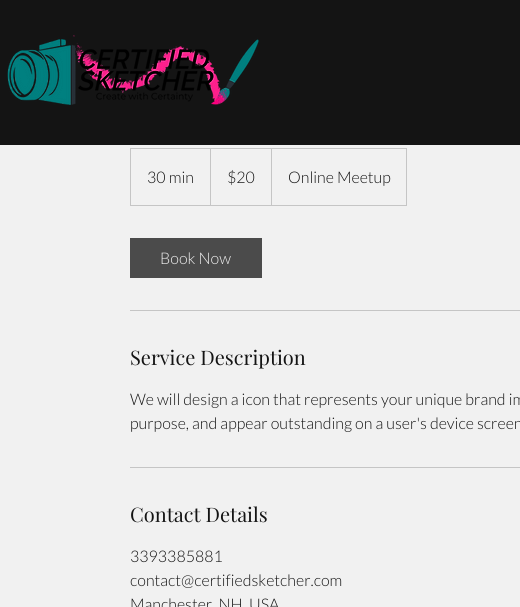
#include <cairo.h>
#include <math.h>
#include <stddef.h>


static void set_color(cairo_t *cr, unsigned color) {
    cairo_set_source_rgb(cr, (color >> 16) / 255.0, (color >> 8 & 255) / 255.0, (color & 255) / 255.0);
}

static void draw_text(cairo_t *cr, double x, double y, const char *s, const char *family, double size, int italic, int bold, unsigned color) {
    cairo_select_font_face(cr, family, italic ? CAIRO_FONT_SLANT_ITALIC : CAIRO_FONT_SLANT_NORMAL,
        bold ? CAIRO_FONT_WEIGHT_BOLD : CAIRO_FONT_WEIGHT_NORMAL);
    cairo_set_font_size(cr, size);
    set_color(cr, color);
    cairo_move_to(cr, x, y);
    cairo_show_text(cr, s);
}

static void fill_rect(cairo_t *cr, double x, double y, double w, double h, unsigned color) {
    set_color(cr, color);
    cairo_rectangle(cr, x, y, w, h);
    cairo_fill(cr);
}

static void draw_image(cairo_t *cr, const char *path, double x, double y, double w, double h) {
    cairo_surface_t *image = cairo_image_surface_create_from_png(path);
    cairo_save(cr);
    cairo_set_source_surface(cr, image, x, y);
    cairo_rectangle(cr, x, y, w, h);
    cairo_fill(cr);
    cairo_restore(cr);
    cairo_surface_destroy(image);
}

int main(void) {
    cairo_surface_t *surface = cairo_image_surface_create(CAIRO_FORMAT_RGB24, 520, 607);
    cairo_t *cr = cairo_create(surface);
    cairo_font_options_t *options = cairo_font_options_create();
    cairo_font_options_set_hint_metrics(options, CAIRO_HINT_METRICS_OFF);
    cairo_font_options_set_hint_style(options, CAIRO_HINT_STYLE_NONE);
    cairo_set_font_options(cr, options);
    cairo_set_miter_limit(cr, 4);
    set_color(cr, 0xF1F1F1);
    cairo_paint(cr);
    fill_rect(cr, 0, 0, 520, 145, 0x141414);
    draw_image(cr, "assets/img1.png", 7, 35, 252, 70);
    cairo_rectangle(cr, 130.5, 148.5, 276, 57);
    set_color(cr, 0xC5C5C5);
    cairo_set_line_width(cr, 1);
    cairo_stroke(cr);
    draw_text(cr, 147, 183, "30 min", "Lato Light", 16, 0, 0, 0x141414);
    set_color(cr, 0xC5C5C5);
    cairo_new_path(cr);
    cairo_move_to(cr, 210, 205);
    cairo_line_to(cr, 210, 148);
    cairo_line_to(cr, 211, 149);
    cairo_line_to(cr, 211, 205);
    cairo_close_path(cr);
    cairo_fill(cr);
    draw_text(cr, 227, 183, "$20", "Lato Light", 16, 0, 0, 0x141414);
    set_color(cr, 0xC5C5C5);
    cairo_new_path(cr);
    cairo_move_to(cr, 271, 205);
    cairo_line_to(cr, 271, 148);
    cairo_line_to(cr, 272, 149);
    cairo_line_to(cr, 272, 205);
    cairo_close_path(cr);
    cairo_fill(cr);
    draw_text(cr, 288, 183, "Online Meetup", "Lato Light", 16, 0, 0, 0x141414);
    fill_rect(cr, 130, 238, 132, 40, 0x4B4B4B);
    draw_text(cr, 160, 264, "Book Now", "Lato Light", 16, 0, 0, 0xF1F1F1);
    fill_rect(cr, 130, 310, 390, 1, 0xC5C5C5);
    draw_text(cr, 130, 365, "Service Description", "Playfair Display", 20, 0, 0, 0x141414);
    draw_text(cr, 130, 405, "We will design a icon that represents your unique brand im", "Lato Light", 16, 0, 0, 0x141414);
    draw_text(cr, 130, 429, "purpose, and appear outstanding on a user's device screen", "Lato Light", 16, 0, 0, 0x141414);
    fill_rect(cr, 130, 467, 390, 1, 0xC5C5C5);
    draw_text(cr, 130, 522, "Contact Details", "Playfair Display", 20, 0, 0, 0x141414);
    draw_text(cr, 130, 562, "3393385881", "Lato Light", 16, 0, 0, 0x141414);
    draw_text(cr, 130, 586, "contact@certifiedsketcher.com", "Lato Light", 16, 0, 0, 0x141414);
    draw_text(cr, 130, 610, "Manchester, NH, USA", "Lato Light", 16, 0, 0, 0x141414);
    cairo_surface_write_to_png(surface, "output.png");
    cairo_font_options_destroy(options);
    cairo_destroy(cr);
    cairo_surface_destroy(surface);
    return 0;
}
